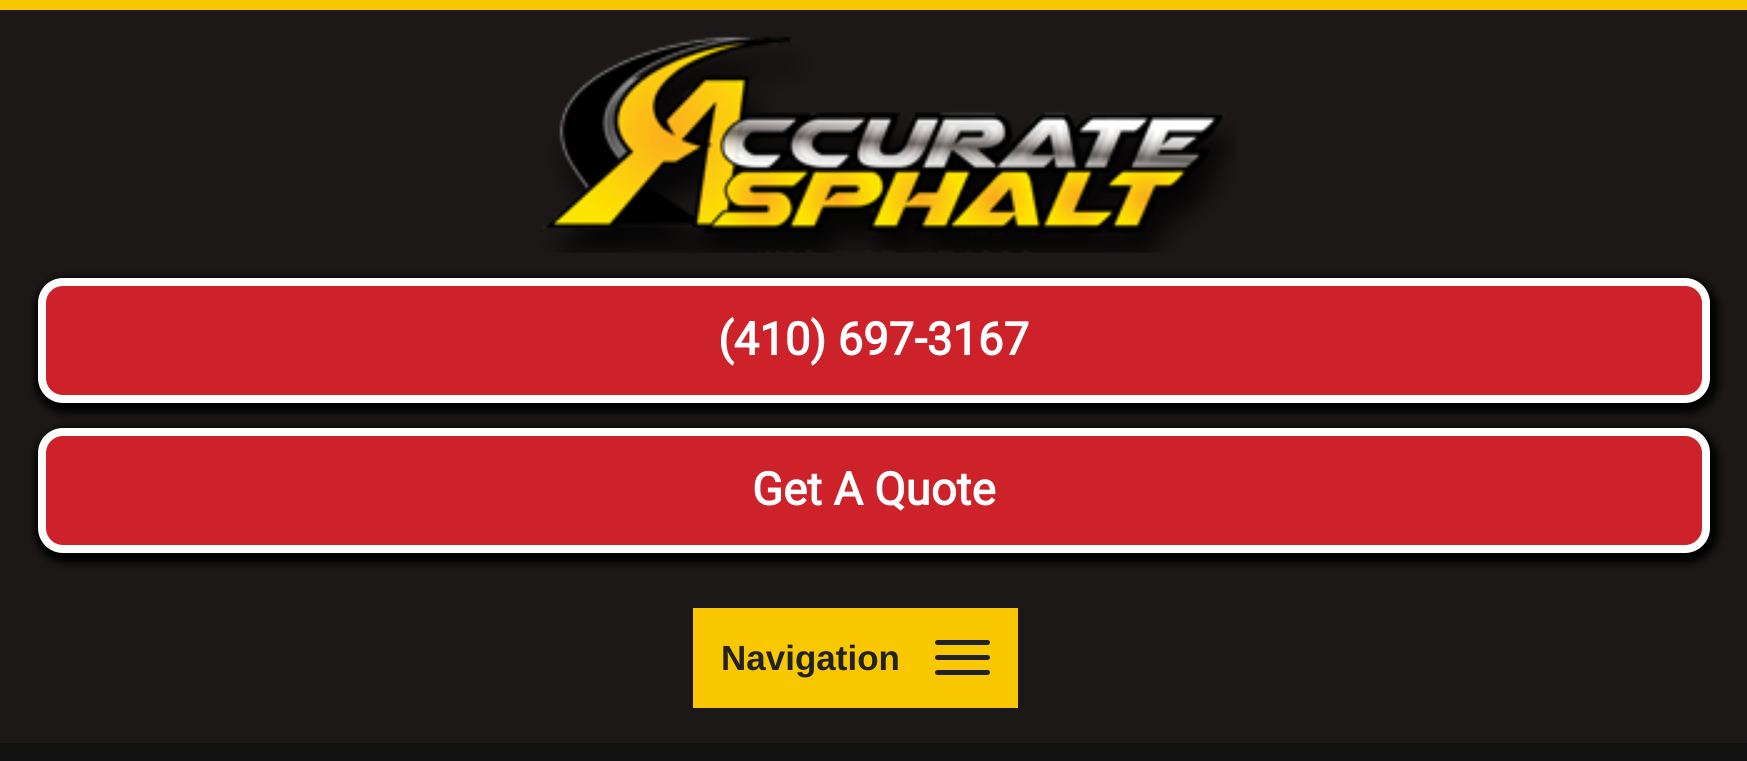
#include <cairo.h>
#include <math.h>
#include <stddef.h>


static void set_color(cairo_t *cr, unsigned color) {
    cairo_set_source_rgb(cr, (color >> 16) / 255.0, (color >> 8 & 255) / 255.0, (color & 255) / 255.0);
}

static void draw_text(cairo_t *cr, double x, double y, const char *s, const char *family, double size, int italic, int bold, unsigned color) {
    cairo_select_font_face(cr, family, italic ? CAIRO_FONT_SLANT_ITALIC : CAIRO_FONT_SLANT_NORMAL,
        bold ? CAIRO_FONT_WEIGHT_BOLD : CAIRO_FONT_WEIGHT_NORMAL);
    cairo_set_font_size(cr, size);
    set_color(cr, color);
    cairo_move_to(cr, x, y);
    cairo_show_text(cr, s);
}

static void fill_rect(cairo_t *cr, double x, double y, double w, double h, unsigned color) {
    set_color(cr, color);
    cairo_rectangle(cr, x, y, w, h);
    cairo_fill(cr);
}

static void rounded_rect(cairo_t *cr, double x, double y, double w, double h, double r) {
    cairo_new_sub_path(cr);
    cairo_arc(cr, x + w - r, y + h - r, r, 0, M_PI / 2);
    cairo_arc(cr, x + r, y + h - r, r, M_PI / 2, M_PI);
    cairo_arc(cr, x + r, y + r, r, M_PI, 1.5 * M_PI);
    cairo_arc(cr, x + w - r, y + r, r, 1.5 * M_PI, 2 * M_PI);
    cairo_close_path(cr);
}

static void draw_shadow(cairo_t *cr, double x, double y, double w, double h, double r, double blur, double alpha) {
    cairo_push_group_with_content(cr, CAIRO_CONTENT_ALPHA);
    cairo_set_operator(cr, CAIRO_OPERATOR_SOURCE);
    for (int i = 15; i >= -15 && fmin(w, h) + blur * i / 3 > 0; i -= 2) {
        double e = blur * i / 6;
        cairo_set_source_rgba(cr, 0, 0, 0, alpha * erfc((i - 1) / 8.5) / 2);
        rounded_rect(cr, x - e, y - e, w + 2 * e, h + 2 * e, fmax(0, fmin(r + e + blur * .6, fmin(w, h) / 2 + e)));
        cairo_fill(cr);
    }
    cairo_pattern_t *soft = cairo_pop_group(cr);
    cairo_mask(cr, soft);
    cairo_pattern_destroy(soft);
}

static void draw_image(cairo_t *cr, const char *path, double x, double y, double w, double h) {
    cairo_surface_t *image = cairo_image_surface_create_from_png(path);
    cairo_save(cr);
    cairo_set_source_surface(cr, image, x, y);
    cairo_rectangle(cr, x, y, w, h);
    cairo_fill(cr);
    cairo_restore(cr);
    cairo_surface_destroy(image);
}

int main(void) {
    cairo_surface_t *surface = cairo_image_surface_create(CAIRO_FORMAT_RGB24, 1747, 761);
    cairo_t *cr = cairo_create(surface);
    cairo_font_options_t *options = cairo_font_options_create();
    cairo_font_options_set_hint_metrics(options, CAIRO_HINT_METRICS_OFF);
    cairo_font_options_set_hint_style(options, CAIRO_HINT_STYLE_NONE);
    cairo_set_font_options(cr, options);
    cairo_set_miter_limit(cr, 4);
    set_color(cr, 0x111111);
    cairo_paint(cr);
    fill_rect(cr, 0, 10, 1747, 733, 0x1C1817);
    fill_rect(cr, 0, 0, 1747, 10, 0xF9C800);
    draw_image(cr, "assets/img1.png", 542, 36, 694, 217);
    set_color(cr, 0x000000);
    draw_shadow(cr, 35, 278, 1683, 135, 30, 4, 1);
    set_color(cr, 0xCE222A);
    rounded_rect(cr, 42, 282, 1664, 117, 21);
    cairo_fill_preserve(cr);
    set_color(cr, 0xFFFFFF);
    cairo_set_line_width(cr, 8);
    cairo_stroke(cr);
    draw_text(cr, 718, 355, "(410) 697-3167", "Roboto", 45.5, 0, 1, 0xFFFFFF);
    set_color(cr, 0x000000);
    draw_shadow(cr, 35, 428, 1683, 135, 30, 4, 1);
    set_color(cr, 0xCE222A);
    rounded_rect(cr, 42, 432, 1664, 117, 21);
    cairo_fill_preserve(cr);
    set_color(cr, 0xFFFFFF);
    cairo_stroke(cr);
    draw_text(cr, 752, 505, "Get A Quote", "Roboto", 45.5, 0, 1, 0xFFFFFF);
    fill_rect(cr, 693, 608, 325, 100, 0xF9C800);
    draw_text(cr, 721, 670, "Navigation", "Liberation Sans", 35, 0, 1, 0x222222);
    rounded_rect(cr, 935, 640, 55, 5, 2.5);
    cairo_fill(cr);
    rounded_rect(cr, 935, 655, 55, 5, 2.5);
    cairo_fill(cr);
    rounded_rect(cr, 935, 670, 55, 5, 2.5);
    cairo_fill(cr);
    cairo_surface_write_to_png(surface, "output.png");
    cairo_font_options_destroy(options);
    cairo_destroy(cr);
    cairo_surface_destroy(surface);
    return 0;
}
